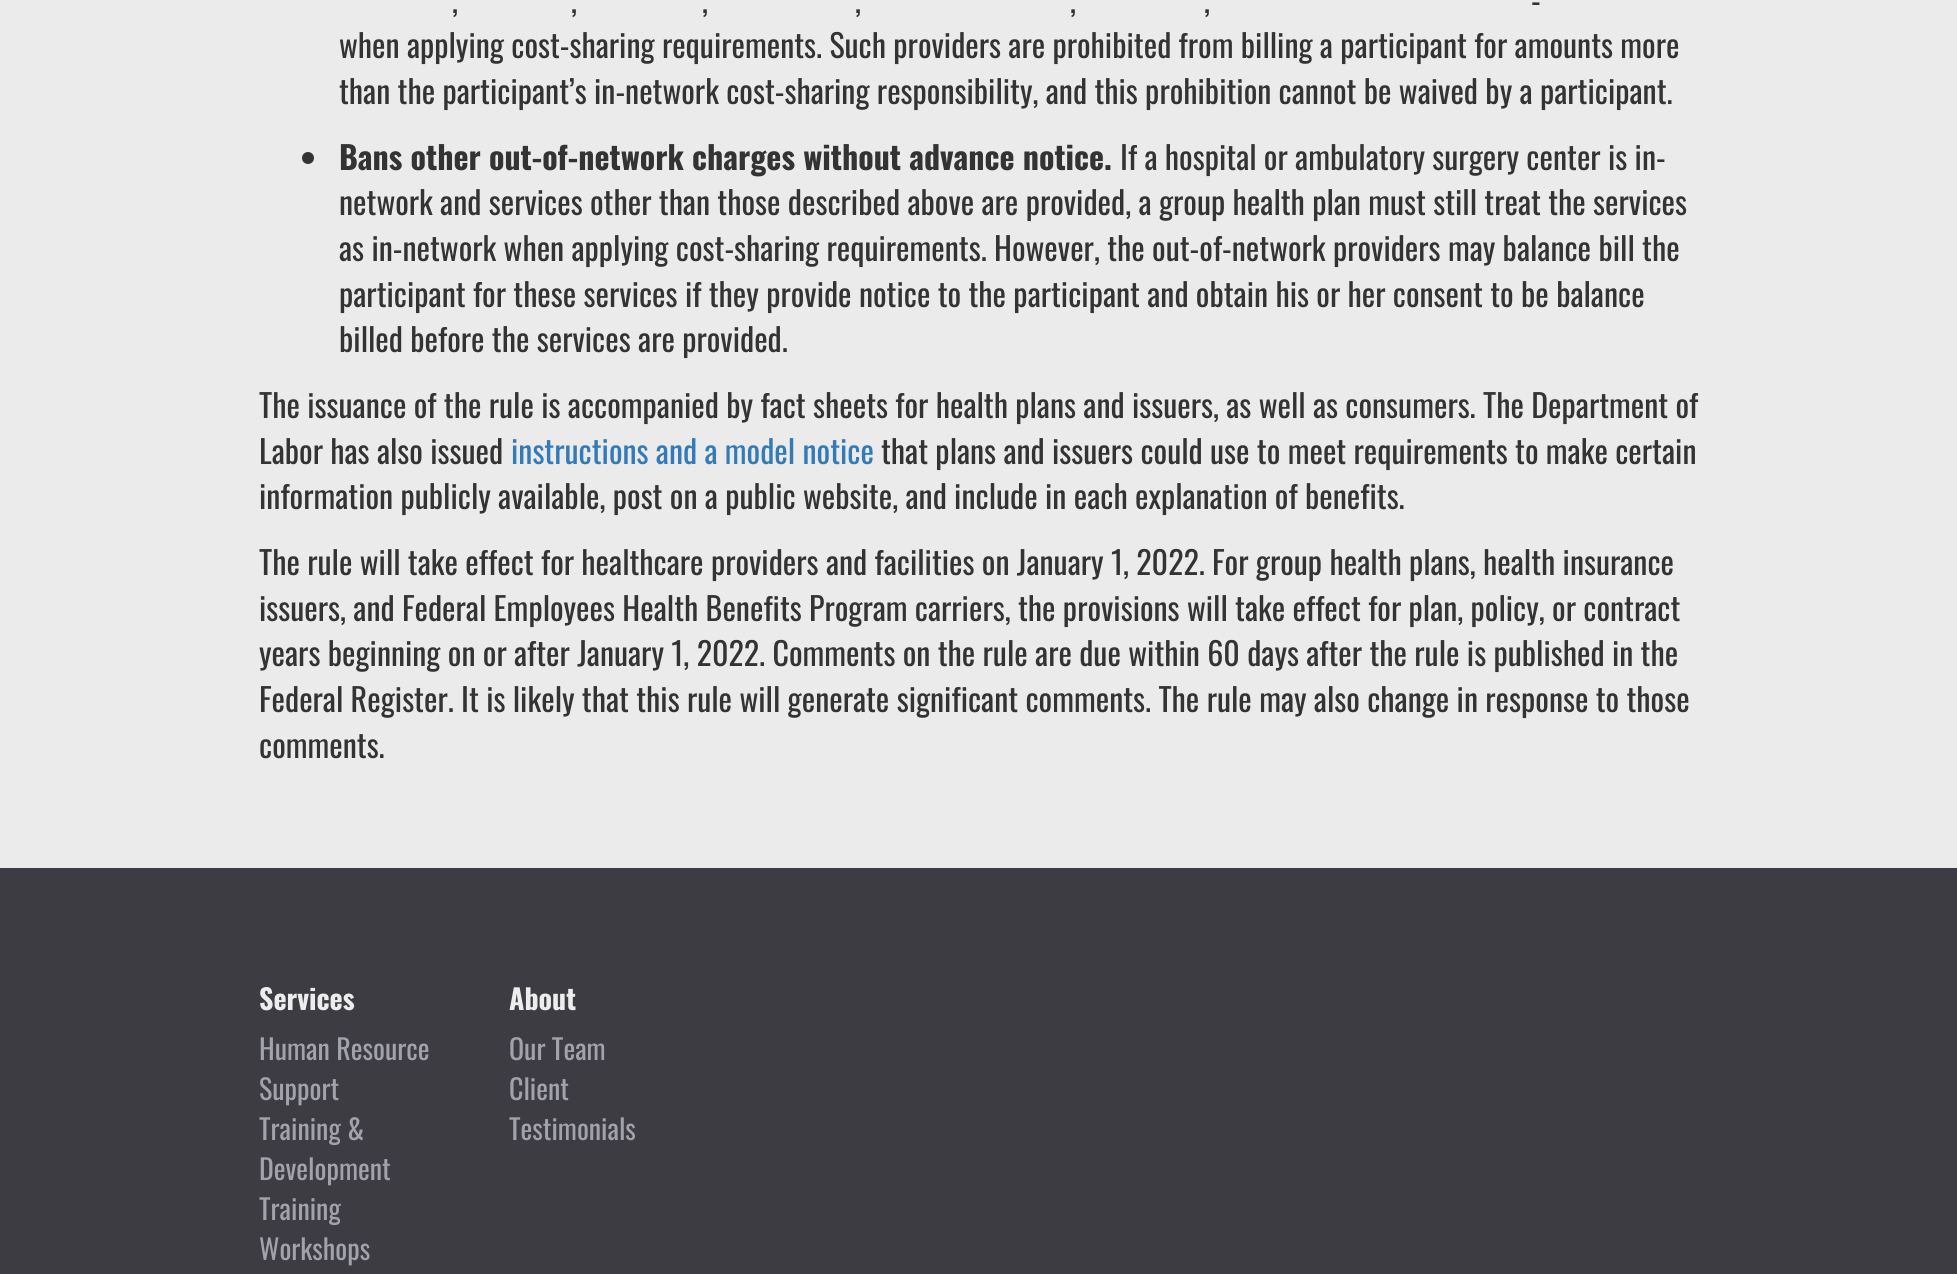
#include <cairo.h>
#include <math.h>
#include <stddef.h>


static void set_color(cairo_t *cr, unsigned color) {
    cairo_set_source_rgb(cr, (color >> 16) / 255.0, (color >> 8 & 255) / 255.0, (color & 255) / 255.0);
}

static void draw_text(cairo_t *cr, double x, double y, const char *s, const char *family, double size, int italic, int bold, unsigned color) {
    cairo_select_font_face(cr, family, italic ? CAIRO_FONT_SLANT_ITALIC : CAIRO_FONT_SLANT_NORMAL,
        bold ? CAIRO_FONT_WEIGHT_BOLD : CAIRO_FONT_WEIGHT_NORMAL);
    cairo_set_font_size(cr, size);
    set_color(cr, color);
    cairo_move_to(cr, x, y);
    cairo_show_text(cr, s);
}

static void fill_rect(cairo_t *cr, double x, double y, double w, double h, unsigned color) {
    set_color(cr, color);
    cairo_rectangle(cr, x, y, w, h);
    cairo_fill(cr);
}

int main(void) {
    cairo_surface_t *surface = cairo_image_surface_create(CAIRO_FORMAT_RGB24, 1957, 1274);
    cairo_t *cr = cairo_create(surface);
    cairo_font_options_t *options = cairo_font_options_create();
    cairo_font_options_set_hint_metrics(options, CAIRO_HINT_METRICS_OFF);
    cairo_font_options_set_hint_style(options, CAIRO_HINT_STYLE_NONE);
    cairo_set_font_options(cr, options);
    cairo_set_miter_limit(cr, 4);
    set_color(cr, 0xEBEBEB);
    cairo_paint(cr);
    draw_text(cr, 1531, 13, "-", "Oswald", 32, 0, 0, 0x333333);
    draw_text(cr, 452, 13, ",", "Oswald", 32, 0, 0, 0x333333);
    draw_text(cr, 571, 13, ",", "Oswald", 32, 0, 0, 0x333333);
    draw_text(cr, 702, 13, ",", "Oswald", 32, 0, 0, 0x333333);
    draw_text(cr, 855, 13, ",", "Oswald", 32, 0, 0, 0x333333);
    draw_text(cr, 1070, 13, ",", "Oswald", 32, 0, 0, 0x333333);
    draw_text(cr, 1204, 13, ",", "Oswald", 32, 0, 0, 0x333333);
    draw_text(cr, 339, 58, "when applying cost-sharing requirements. Such providers are prohibited from billing a participant for amounts more", "Oswald", 32, 0, 0, 0x333333);
    draw_text(cr, 339, 104, "than the participant’s in-network cost-sharing responsibility, and this prohibition cannot be waived by a participant.", "Oswald", 32, 0, 0, 0x333333);
    cairo_new_path(cr);
    cairo_arc(cr, 308, 158, 6, 0, 2 * M_PI);
    cairo_fill(cr);
    draw_text(cr, 339, 170, "Bans other out-of-network charges without advance notice.", "Oswald", 32, 0, 1, 0x333333);
    draw_text(cr, 1120, 170, "If a hospital or ambulatory surgery center is in-", "Oswald", 32, 0, 0, 0x333333);
    draw_text(cr, 339, 215, "network and services other than those described above are provided, a group health plan must still treat the services", "Oswald", 32, 0, 0, 0x333333);
    draw_text(cr, 339, 261, "as in-network when applying cost-sharing requirements. However, the out-of-network providers may balance bill the", "Oswald", 32, 0, 0, 0x333333);
    draw_text(cr, 339, 307, "participant for these services if they provide notice to the participant and obtain his or her consent to be balance", "Oswald", 32, 0, 0, 0x333333);
    draw_text(cr, 339, 352, "billed before the services are provided.", "Oswald", 32, 0, 0, 0x333333);
    draw_text(cr, 259, 418, "The issuance of the rule is accompanied by fact sheets for health plans and issuers, as well as consumers. The Department of", "Oswald", 32, 0, 0, 0x333333);
    draw_text(cr, 259, 464, "Labor has also issued", "Oswald", 32, 0, 0, 0x333333);
    draw_text(cr, 511, 464, "instructions and a model notice", "Oswald", 32, 0, 0, 0x337AB7);
    draw_text(cr, 881, 464, "that plans and issuers could use to meet requirements to make certain", "Oswald", 32, 0, 0, 0x333333);
    draw_text(cr, 259, 509, "information publicly available, post on a public website, and include in each explanation of benefits.", "Oswald", 32, 0, 0, 0x333333);
    draw_text(cr, 259, 575, "The rule will take effect for healthcare providers and facilities on January 1, 2022. For group health plans, health insurance", "Oswald", 32, 0, 0, 0x333333);
    draw_text(cr, 259, 621, "issuers, and Federal Employees Health Benefits Program carriers, the provisions will take effect for plan, policy, or contract", "Oswald", 32, 0, 0, 0x333333);
    draw_text(cr, 259, 666, "years beginning on or after January 1, 2022. Comments on the rule are due within 60 days after the rule is published in the", "Oswald", 32, 0, 0, 0x333333);
    draw_text(cr, 259, 712, "Federal Register. It is likely that this rule will generate significant comments. The rule may also change in response to those", "Oswald", 32, 0, 0, 0x333333);
    draw_text(cr, 259, 758, "comments.", "Oswald", 32, 0, 0, 0x333333);
    fill_rect(cr, 0, 868, 1957, 406, 0x3D3C42);
    draw_text(cr, 259, 1010, "Services", "Oswald", 28, 0, 1, 0xEDEDED);
    draw_text(cr, 259, 1060, "Human Resource", "Oswald", 28, 0, 0, 0xA2A3AA);
    draw_text(cr, 259, 1100, "Support", "Oswald", 28, 0, 0, 0xA2A3AA);
    draw_text(cr, 259, 1140, "Training &", "Oswald", 28, 0, 0, 0xA2A3AA);
    draw_text(cr, 259, 1180, "Development", "Oswald", 28, 0, 0, 0xA2A3AA);
    draw_text(cr, 259, 1220, "Training", "Oswald", 28, 0, 0, 0xA2A3AA);
    draw_text(cr, 259, 1260, "Workshops", "Oswald", 28, 0, 0, 0xA2A3AA);
    draw_text(cr, 509, 1010, "About", "Oswald", 28, 0, 1, 0xEDEDED);
    draw_text(cr, 509, 1060, "Our Team", "Oswald", 28, 0, 0, 0xA2A3AA);
    draw_text(cr, 509, 1100, "Client", "Oswald", 28, 0, 0, 0xA2A3AA);
    draw_text(cr, 509, 1140, "Testimonials", "Oswald", 28, 0, 0, 0xA2A3AA);
    cairo_surface_write_to_png(surface, "output.png");
    cairo_font_options_destroy(options);
    cairo_destroy(cr);
    cairo_surface_destroy(surface);
    return 0;
}
